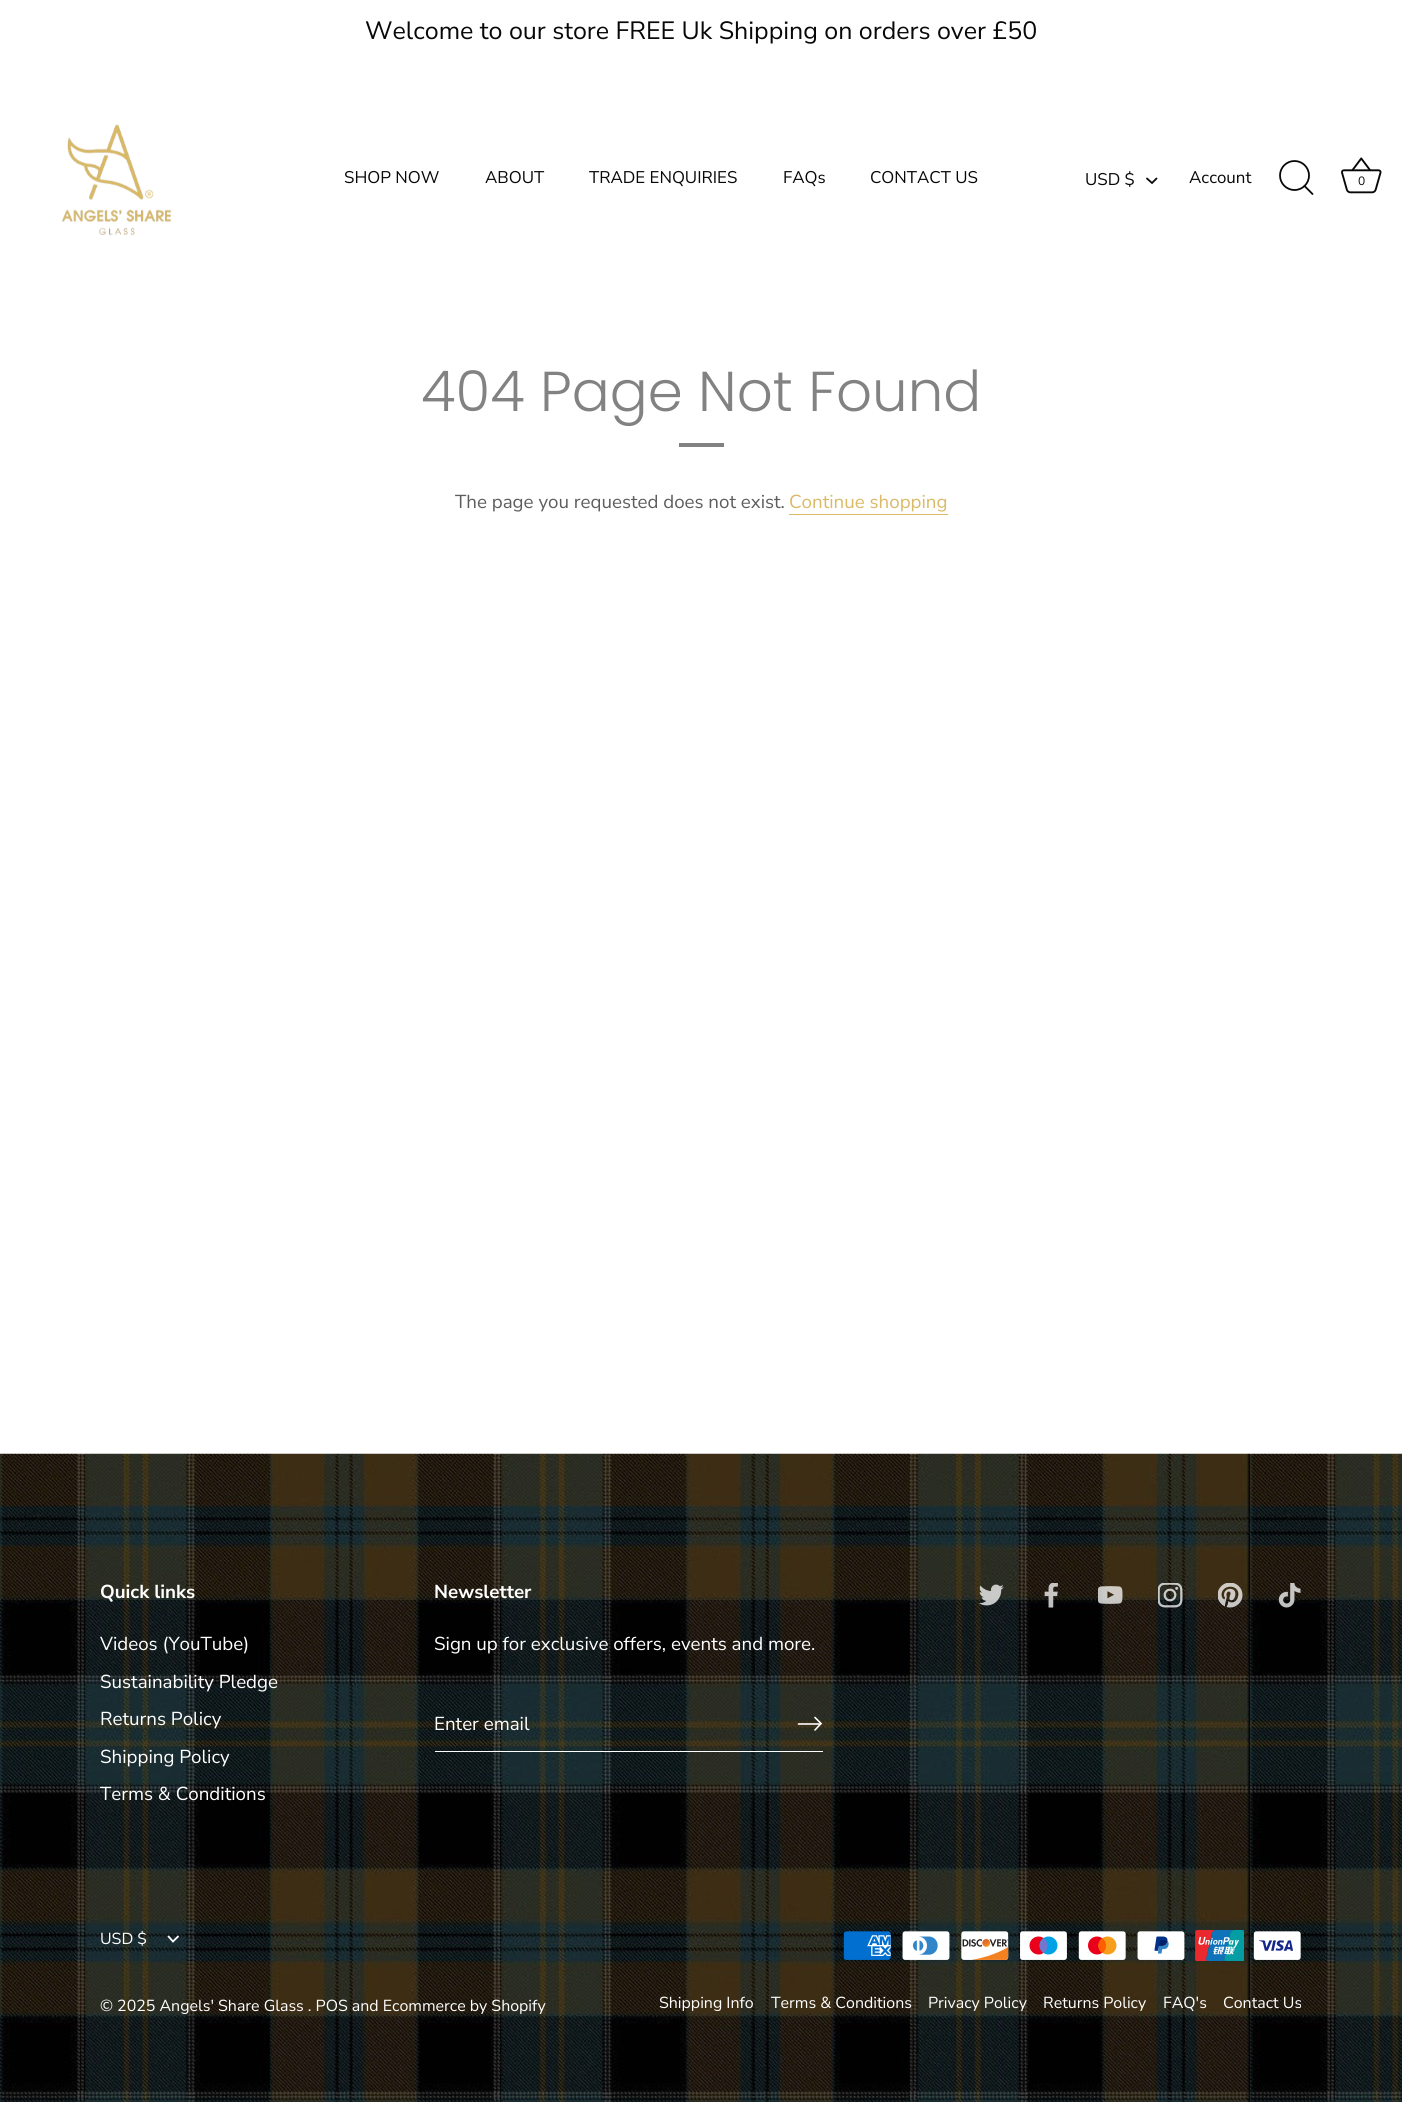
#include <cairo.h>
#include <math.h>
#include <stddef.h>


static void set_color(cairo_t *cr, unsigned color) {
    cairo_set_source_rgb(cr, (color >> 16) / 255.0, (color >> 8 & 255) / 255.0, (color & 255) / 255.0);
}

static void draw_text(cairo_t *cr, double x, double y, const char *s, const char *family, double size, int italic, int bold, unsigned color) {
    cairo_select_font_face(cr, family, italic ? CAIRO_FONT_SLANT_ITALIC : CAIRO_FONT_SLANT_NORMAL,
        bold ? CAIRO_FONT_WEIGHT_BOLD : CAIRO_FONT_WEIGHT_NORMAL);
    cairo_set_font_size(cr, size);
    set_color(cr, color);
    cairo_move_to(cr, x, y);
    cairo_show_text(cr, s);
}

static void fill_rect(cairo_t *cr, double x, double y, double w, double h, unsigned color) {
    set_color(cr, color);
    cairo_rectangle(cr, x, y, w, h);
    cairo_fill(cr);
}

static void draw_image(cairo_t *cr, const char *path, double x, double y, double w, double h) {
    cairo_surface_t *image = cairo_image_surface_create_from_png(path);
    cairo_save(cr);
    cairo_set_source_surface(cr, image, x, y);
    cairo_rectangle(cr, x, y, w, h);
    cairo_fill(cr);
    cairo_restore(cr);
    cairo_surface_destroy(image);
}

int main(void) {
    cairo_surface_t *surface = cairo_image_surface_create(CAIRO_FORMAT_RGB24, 1402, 2102);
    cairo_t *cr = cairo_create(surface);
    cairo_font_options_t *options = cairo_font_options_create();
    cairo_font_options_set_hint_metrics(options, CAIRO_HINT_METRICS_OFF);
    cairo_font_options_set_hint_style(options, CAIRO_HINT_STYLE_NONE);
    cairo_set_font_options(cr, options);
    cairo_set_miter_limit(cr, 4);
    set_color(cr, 0xFFFFFF);
    cairo_paint(cr);
    draw_text(cr, 365, 39, "Welcome to our store FREE Uk Shipping on orders over £50", "Nunito Sans", 25, 0, 0, 0x080808);
    draw_image(cr, "assets/img1.png", 62, 124, 110, 112);
    draw_text(cr, 344, 183, "SHOP NOW", "Nunito Sans", 16.9, 0, 0, 0x080808);
    draw_text(cr, 485, 183, "ABOUT", "Nunito Sans", 16.9, 0, 0, 0x080808);
    draw_text(cr, 589, 183, "TRADE ENQUIRIES", "Nunito Sans", 16.9, 0, 0, 0x080808);
    draw_text(cr, 783, 183, "FAQs", "Nunito Sans", 16.9, 0, 0, 0x080808);
    draw_text(cr, 870, 183, "CONTACT US", "Nunito Sans", 16.9, 0, 0, 0x080808);
    draw_text(cr, 1085, 185, "USD $", "Nunito Sans", 16.9, 0, 0, 0x080808);
    cairo_new_path(cr);
    cairo_move_to(cr, 1147, 178.5);
    cairo_line_to(cr, 1152, 183);
    cairo_line_to(cr, 1156.5, 178.5);
    cairo_set_line_width(cr, 1.8);
    cairo_set_line_cap(cr, CAIRO_LINE_CAP_ROUND);
    cairo_stroke(cr);
    draw_text(cr, 1189, 183, "Account", "Nunito Sans", 16.9, 0, 0, 0x080808);
    cairo_new_path(cr);
    cairo_arc(cr, 1294.5, 175.5, 14.5, 0, 2 * M_PI);
    cairo_set_line_cap(cr, CAIRO_LINE_CAP_BUTT);
    cairo_stroke(cr);
    cairo_new_path(cr);
    cairo_move_to(cr, 1312.5, 194);
    cairo_line_to(cr, 1304.5, 186);
    cairo_set_line_cap(cr, CAIRO_LINE_CAP_ROUND);
    cairo_set_line_join(cr, CAIRO_LINE_JOIN_ROUND);
    cairo_stroke(cr);
    draw_image(cr, "assets/img2.png", 1341, 157, 41, 37);
    draw_text(cr, 1358, 185, "0", "Nunito Sans", 12, 0, 0, 0x080808);
    draw_text(cr, 421, 411, "404 Page Not Found", "Poppins Light", 56.25, 0, 0, 0x828282);
    fill_rect(cr, 679, 443, 45, 4, 0x828282);
    draw_text(cr, 455, 508, "The page you requested does not exist.", "Nunito Sans", 18.75, 0, 0, 0x5E5C5C);
    draw_text(cr, 789, 508, "Continue shopping", "Nunito Sans", 18.75, 0, 0, 0xDAB967);
    fill_rect(cr, 789, 514, 159, 1, 0xDAB967);
    draw_image(cr, "assets/img3.png", 0, 1453, 1402, 649);
    draw_text(cr, 100, 1598, "Quick links", "Nunito Sans", 18.75, 0, 1, 0xFFFFFF);
    draw_text(cr, 100, 1650, "Videos (YouTube)", "Nunito Sans", 18.75, 0, 0, 0xFFFFFF);
    draw_text(cr, 100, 1688, "Sustainability Pledge", "Nunito Sans", 18.75, 0, 0, 0xFFFFFF);
    draw_text(cr, 100, 1725, "Returns Policy", "Nunito Sans", 18.75, 0, 0, 0xFFFFFF);
    draw_text(cr, 100, 1763, "Shipping Policy", "Nunito Sans", 18.75, 0, 0, 0xFFFFFF);
    draw_text(cr, 100, 1800, "Terms & Conditions", "Nunito Sans", 18.75, 0, 0, 0xFFFFFF);
    draw_text(cr, 434, 1598, "Newsletter", "Nunito Sans", 18.75, 0, 1, 0xFFFFFF);
    draw_text(cr, 434, 1650, "Sign up for exclusive offers, events and more.", "Nunito Sans", 18.75, 0, 0, 0xFFFFFF);
    fill_rect(cr, 435, 1751, 388, 1, 0xFFFFFF);
    draw_text(cr, 434, 1730, "Enter email", "Nunito Sans", 18.75, 0, 0, 0xFFFFFF);
    cairo_new_path(cr);
    cairo_move_to(cr, 815, 1730);
    cairo_line_to(cr, 821, 1723.5);
    cairo_line_to(cr, 815, 1717.5);
    cairo_set_line_width(cr, 1.6);
    cairo_set_line_join(cr, CAIRO_LINE_JOIN_MITER);
    cairo_stroke(cr);
    cairo_new_path(cr);
    cairo_move_to(cr, 820.5, 1724);
    cairo_line_to(cr, 798.5, 1724);
    cairo_set_line_join(cr, CAIRO_LINE_JOIN_ROUND);
    cairo_stroke(cr);
    draw_image(cr, "assets/img4.png", 979, 1584, 25, 22);
    draw_image(cr, "assets/img5.png", 1044, 1583, 14, 25);
    draw_image(cr, "assets/img6.png", 1098, 1586, 25, 18);
    draw_image(cr, "assets/img7.png", 1158, 1583, 25, 25);
    draw_image(cr, "assets/img8.png", 1218, 1583, 25, 25);
    draw_image(cr, "assets/img9.png", 1278, 1583, 23, 25);
    draw_text(cr, 100, 1944, "USD $", "Nunito Sans", 15.95, 0, 0, 0xFFFFFF);
    cairo_new_path(cr);
    cairo_move_to(cr, 168.5, 1936.5);
    cairo_line_to(cr, 173, 1941.5);
    cairo_line_to(cr, 178, 1936.5);
    cairo_set_line_width(cr, 1.8);
    cairo_set_line_join(cr, CAIRO_LINE_JOIN_MITER);
    cairo_stroke(cr);
    draw_text(cr, 100, 2011, "© 2025 Angels' Share Glass . POS and Ecommerce by Shopify", "Nunito Sans", 15.95, 0, 0, 0xFFFFFF);
    draw_image(cr, "assets/img10.png", 843, 1930, 48, 30);
    draw_image(cr, "assets/img11.png", 902, 1931, 48, 29);
    draw_image(cr, "assets/img12.png", 960, 1930, 49, 31);
    draw_image(cr, "assets/img13.png", 1020, 1931, 47, 29);
    draw_image(cr, "assets/img14.png", 1078, 1931, 48, 29);
    draw_image(cr, "assets/img15.png", 1137, 1931, 48, 29);
    draw_image(cr, "assets/img16.png", 1195, 1930, 49, 31);
    draw_image(cr, "assets/img17.png", 1253, 1931, 48, 29);
    draw_text(cr, 659, 2008, "Shipping Info", "Nunito Sans", 15.95, 0, 0, 0xFFFFFF);
    draw_text(cr, 771, 2008, "Terms & Conditions", "Nunito Sans", 15.95, 0, 0, 0xFFFFFF);
    draw_text(cr, 928, 2008, "Privacy Policy", "Nunito Sans", 15.95, 0, 0, 0xFFFFFF);
    draw_text(cr, 1043, 2008, "Returns Policy", "Nunito Sans", 15.95, 0, 0, 0xFFFFFF);
    draw_text(cr, 1163, 2008, "FAQ's", "Nunito Sans", 15.95, 0, 0, 0xFFFFFF);
    draw_text(cr, 1223, 2008, "Contact Us", "Nunito Sans", 15.95, 0, 0, 0xFFFFFF);
    cairo_surface_write_to_png(surface, "output.png");
    cairo_font_options_destroy(options);
    cairo_destroy(cr);
    cairo_surface_destroy(surface);
    return 0;
}
